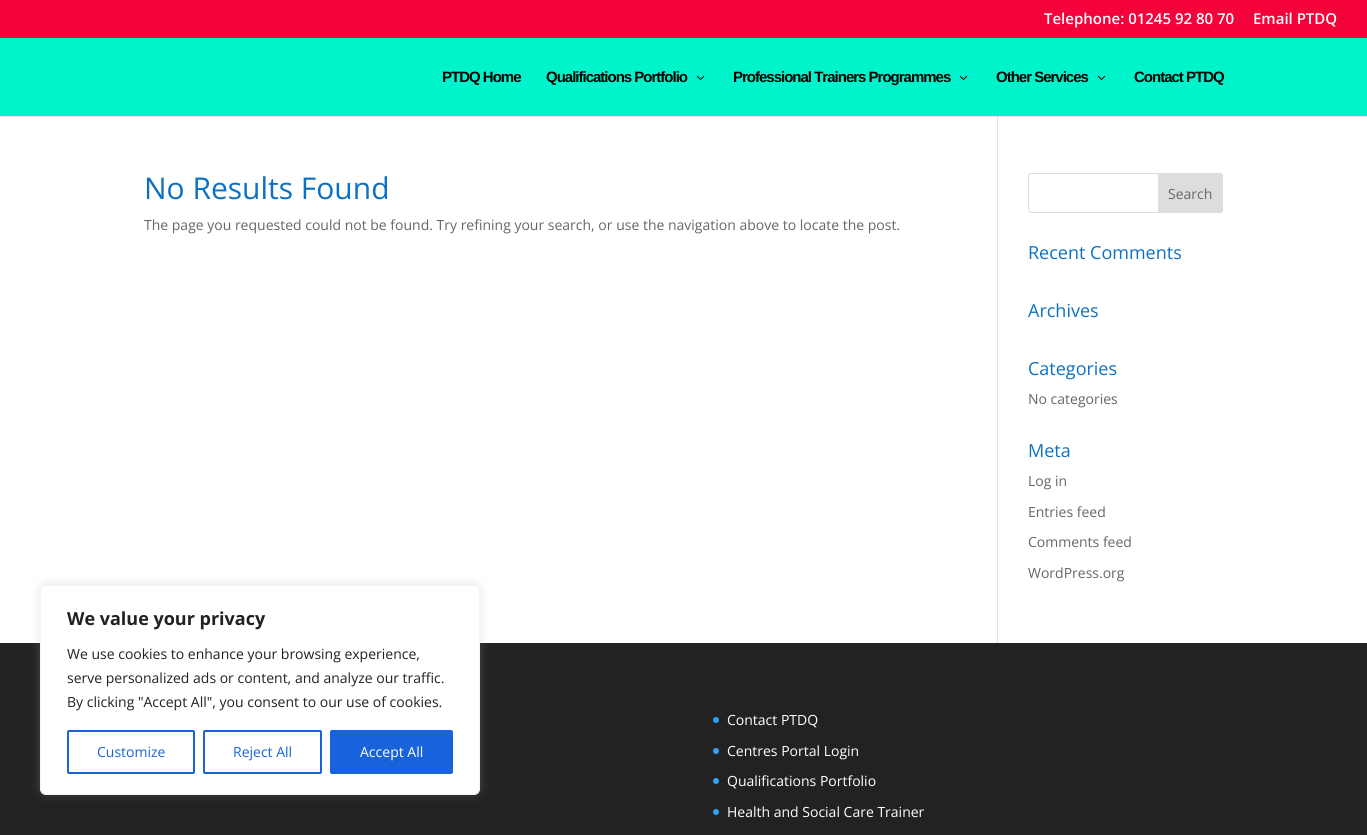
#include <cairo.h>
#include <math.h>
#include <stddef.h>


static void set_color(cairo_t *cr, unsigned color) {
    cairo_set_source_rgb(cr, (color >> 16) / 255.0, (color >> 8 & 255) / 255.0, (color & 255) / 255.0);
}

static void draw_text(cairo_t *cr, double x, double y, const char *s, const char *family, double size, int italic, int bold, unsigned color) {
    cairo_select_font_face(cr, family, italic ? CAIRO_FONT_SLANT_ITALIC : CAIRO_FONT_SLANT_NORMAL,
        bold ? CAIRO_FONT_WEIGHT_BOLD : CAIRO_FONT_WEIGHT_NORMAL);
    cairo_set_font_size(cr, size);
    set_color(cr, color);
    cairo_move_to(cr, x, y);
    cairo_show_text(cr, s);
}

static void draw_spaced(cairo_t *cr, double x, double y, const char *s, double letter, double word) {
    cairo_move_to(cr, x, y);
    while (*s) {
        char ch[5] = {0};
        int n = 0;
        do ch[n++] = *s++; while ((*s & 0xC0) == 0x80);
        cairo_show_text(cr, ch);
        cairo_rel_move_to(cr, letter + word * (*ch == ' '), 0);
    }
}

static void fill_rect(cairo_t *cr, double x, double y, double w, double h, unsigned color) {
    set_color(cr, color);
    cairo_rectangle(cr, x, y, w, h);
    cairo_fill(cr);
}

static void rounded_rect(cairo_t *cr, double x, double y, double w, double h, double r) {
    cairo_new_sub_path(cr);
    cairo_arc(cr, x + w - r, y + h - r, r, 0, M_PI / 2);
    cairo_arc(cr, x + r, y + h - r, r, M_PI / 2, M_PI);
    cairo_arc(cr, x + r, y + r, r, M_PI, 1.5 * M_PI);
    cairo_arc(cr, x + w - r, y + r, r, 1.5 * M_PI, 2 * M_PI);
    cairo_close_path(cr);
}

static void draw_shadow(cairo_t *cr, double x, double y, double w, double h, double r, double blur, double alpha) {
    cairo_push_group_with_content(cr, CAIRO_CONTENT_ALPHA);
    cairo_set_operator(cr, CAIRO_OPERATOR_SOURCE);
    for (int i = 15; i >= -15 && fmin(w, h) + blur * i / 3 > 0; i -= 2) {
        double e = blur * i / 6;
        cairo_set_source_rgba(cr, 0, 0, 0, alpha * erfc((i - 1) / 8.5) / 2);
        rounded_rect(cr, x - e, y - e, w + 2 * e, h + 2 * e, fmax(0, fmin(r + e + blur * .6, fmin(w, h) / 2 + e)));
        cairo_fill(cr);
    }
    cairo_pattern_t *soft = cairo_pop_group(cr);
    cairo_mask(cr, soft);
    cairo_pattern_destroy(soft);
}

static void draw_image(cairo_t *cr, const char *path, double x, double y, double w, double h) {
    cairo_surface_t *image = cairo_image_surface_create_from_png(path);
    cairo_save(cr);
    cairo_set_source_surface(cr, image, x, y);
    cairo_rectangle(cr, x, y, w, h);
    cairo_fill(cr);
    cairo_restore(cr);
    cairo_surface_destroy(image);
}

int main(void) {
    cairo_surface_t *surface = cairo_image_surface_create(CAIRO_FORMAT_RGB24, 1367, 835);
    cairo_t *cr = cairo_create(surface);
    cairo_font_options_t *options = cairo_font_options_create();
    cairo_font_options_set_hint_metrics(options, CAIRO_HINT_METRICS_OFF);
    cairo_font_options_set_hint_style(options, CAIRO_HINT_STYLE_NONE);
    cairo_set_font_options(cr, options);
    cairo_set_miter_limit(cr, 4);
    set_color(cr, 0xFFFFFF);
    cairo_paint(cr);
    fill_rect(cr, 0, 0, 1367, 38, 0xF4023A);
    draw_text(cr, 1044, 24, "Telephone: 01245 92 80 70", "Open Sans SemiBold", 15, 0, 0, 0xFFFFFF);
    draw_text(cr, 1253, 24, "Email PTDQ", "Open Sans SemiBold", 15, 0, 0, 0xFFFFFF);
    fill_rect(cr, 0, 116, 1367, 1, 0xE6E6E6);
    fill_rect(cr, 997, 115, 1, 528, 0xE2E2E2);
    fill_rect(cr, 0, 38, 1367, 78, 0x00F4CC);
    cairo_select_font_face(cr, "Liberation Sans", CAIRO_FONT_SLANT_NORMAL, CAIRO_FONT_WEIGHT_BOLD);
    set_color(cr, 0x000000);
    draw_spaced(cr, 442, 82, "PTDQ Home", -1, 0);
    draw_spaced(cr, 546, 82, "Qualifications Portfolio", -1, 0);
    draw_image(cr, "assets/img1.png", 696, 75, 9, 5);
    draw_spaced(cr, 733, 82, "Professional Trainers Programmes", -1, 0);
    draw_image(cr, "assets/img1.png", 959, 75, 9, 5);
    draw_spaced(cr, 996, 82, "Other Services", -1, 0);
    draw_image(cr, "assets/img1.png", 1097, 75, 9, 5);
    draw_spaced(cr, 1134, 82, "Contact PTDQ", -1, 0);
    fill_rect(cr, 997, 116, 1, 1, 0xCBCBCB);
    draw_text(cr, 144, 199, "No Results Found", "Open Sans", 30, 0, 0, 0x0C71C3);
    draw_text(cr, 144, 230, "The page you requested could not be found. Try refining your search, or use the navigation above to locate the post.", "Open Sans", 14, 0, 0, 0x666666);
    rounded_rect(cr, 1028.5, 173.5, 194, 39, 2.5);
    set_color(cr, 0xDDDDDD);
    cairo_set_line_width(cr, 1);
    cairo_stroke(cr);
    cairo_new_path(cr);
    cairo_move_to(cr, 1158.5, 173.5);
    cairo_line_to(cr, 1220, 173.5);
    cairo_curve_to(cr, 1221.5, 173.5, 1222.5, 174.5, 1222.5, 176);
    cairo_line_to(cr, 1222.5, 210);
    cairo_curve_to(cr, 1222.5, 211.5, 1221.5, 212.5, 1220, 212.5);
    cairo_line_to(cr, 1158.5, 212.5);
    cairo_close_path(cr);
    cairo_fill_preserve(cr);
    cairo_stroke(cr);
    draw_text(cr, 1168, 199, "Search", "Open Sans", 14, 0, 0, 0x666666);
    draw_text(cr, 1028, 259, "Recent Comments", "Open Sans", 18, 0, 0, 0x0C71C3);
    draw_text(cr, 1028, 317, "Archives", "Open Sans", 18, 0, 0, 0x0C71C3);
    draw_text(cr, 1028, 375, "Categories", "Open Sans", 18, 0, 0, 0x0C71C3);
    draw_text(cr, 1028, 404, "No categories", "Open Sans", 14, 0, 0, 0x666666);
    draw_text(cr, 1028, 457, "Meta", "Open Sans", 18, 0, 0, 0x0C71C3);
    draw_text(cr, 1028, 486, "Log in", "Open Sans", 14, 0, 0, 0x666666);
    draw_text(cr, 1028, 517, "Entries feed", "Open Sans", 14, 0, 0, 0x666666);
    draw_text(cr, 1028, 547, "Comments feed", "Open Sans", 14, 0, 0, 0x666666);
    draw_text(cr, 1028, 578, "WordPress.org", "Open Sans", 14, 0, 0, 0x666666);
    fill_rect(cr, 0, 643, 1367, 192, 0x222222);
    set_color(cr, 0x2EA3F2);
    cairo_new_path(cr);
    cairo_arc(cr, 716, 720, 3, 0, 2 * M_PI);
    cairo_fill(cr);
    draw_text(cr, 727, 725, "Contact PTDQ", "Open Sans", 14, 0, 0, 0xFFFFFF);
    set_color(cr, 0x2EA3F2);
    cairo_new_path(cr);
    cairo_arc(cr, 716, 751, 3, 0, 2 * M_PI);
    cairo_fill(cr);
    draw_text(cr, 727, 756, "Centres Portal Login", "Open Sans", 14, 0, 0, 0xFFFFFF);
    set_color(cr, 0x2EA3F2);
    cairo_new_path(cr);
    cairo_arc(cr, 716, 781, 3, 0, 2 * M_PI);
    cairo_fill(cr);
    draw_text(cr, 727, 786, "Qualifications Portfolio", "Open Sans", 14, 0, 0, 0xFFFFFF);
    set_color(cr, 0x2EA3F2);
    cairo_new_path(cr);
    cairo_arc(cr, 716, 812, 3, 0, 2 * M_PI);
    cairo_fill(cr);
    draw_text(cr, 727, 817, "Health and Social Care Trainer", "Open Sans", 14, 0, 0, 0xFFFFFF);
    set_color(cr, 0xACABAB);
    draw_shadow(cr, 40, 584, 440, 210, 6, 5, 0.3);
    set_color(cr, 0xFFFFFF);
    rounded_rect(cr, 40.5, 585.5, 439, 209, 5.5);
    cairo_fill_preserve(cr);
    set_color(cr, 0xF4F4F4);
    cairo_stroke(cr);
    draw_text(cr, 67, 625, "We value your privacy", "Open Sans", 18, 0, 1, 0x212121);
    draw_text(cr, 67, 659, "We use cookies to enhance your browsing experience,", "Open Sans", 14, 0, 0, 0x212121);
    draw_text(cr, 67, 683, "serve personalized ads or content, and analyze our traffic.", "Open Sans", 14, 0, 0, 0x212121);
    draw_text(cr, 67, 707, "By clicking \"Accept All\", you consent to our use of cookies.", "Open Sans", 14, 0, 0, 0x212121);
    rounded_rect(cr, 68, 731, 126, 42, 1);
    set_color(cr, 0x1863DC);
    cairo_set_line_width(cr, 2);
    cairo_stroke(cr);
    draw_text(cr, 97, 757, "Customize", "Open Sans", 14, 0, 0, 0x1863DC);
    rounded_rect(cr, 204, 731, 117, 42, 1);
    cairo_stroke(cr);
    draw_text(cr, 233, 757, "Reject All", "Open Sans", 14, 0, 0, 0x1863DC);
    rounded_rect(cr, 331, 731, 121, 42, 1);
    cairo_fill_preserve(cr);
    cairo_stroke(cr);
    draw_text(cr, 360, 757, "Accept All", "Open Sans", 14, 0, 0, 0xFFFFFF);
    cairo_surface_write_to_png(surface, "output.png");
    cairo_font_options_destroy(options);
    cairo_destroy(cr);
    cairo_surface_destroy(surface);
    return 0;
}
